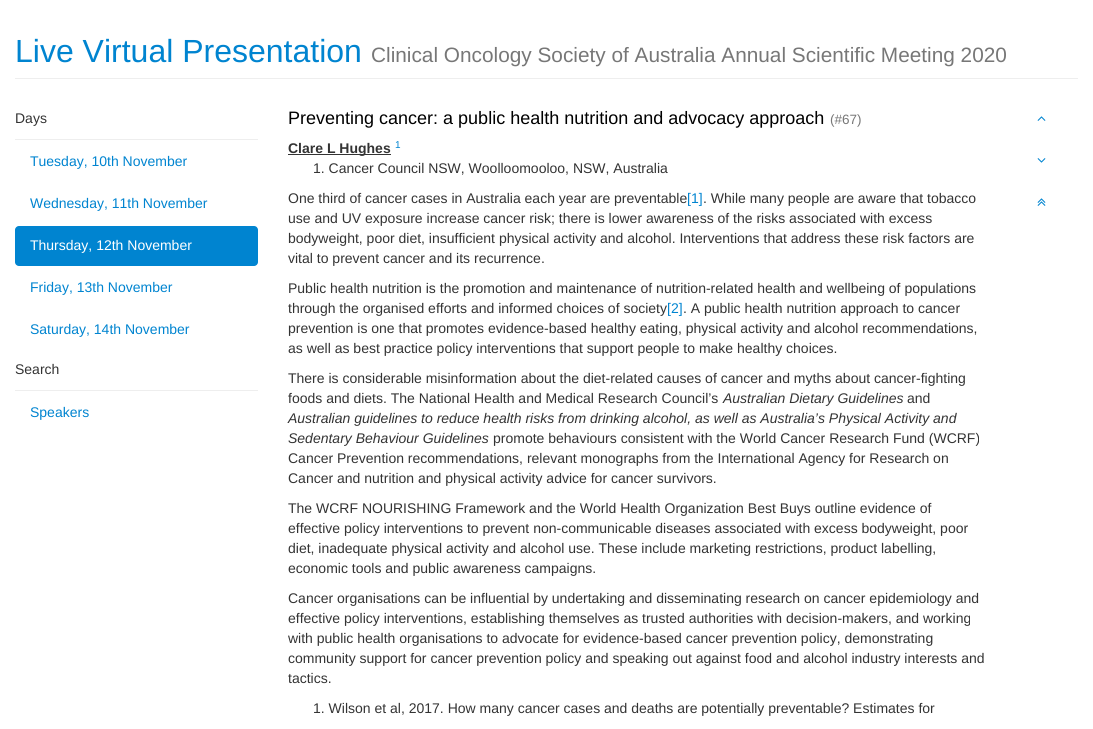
#include <cairo.h>
#include <math.h>
#include <stddef.h>


static void set_color(cairo_t *cr, unsigned color) {
    cairo_set_source_rgb(cr, (color >> 16) / 255.0, (color >> 8 & 255) / 255.0, (color & 255) / 255.0);
}

static void draw_text(cairo_t *cr, double x, double y, const char *s, const char *family, double size, int italic, int bold, unsigned color) {
    cairo_select_font_face(cr, family, italic ? CAIRO_FONT_SLANT_ITALIC : CAIRO_FONT_SLANT_NORMAL,
        bold ? CAIRO_FONT_WEIGHT_BOLD : CAIRO_FONT_WEIGHT_NORMAL);
    cairo_set_font_size(cr, size);
    set_color(cr, color);
    cairo_move_to(cr, x, y);
    cairo_show_text(cr, s);
}

static void fill_rect(cairo_t *cr, double x, double y, double w, double h, unsigned color) {
    set_color(cr, color);
    cairo_rectangle(cr, x, y, w, h);
    cairo_fill(cr);
}

static void rounded_rect(cairo_t *cr, double x, double y, double w, double h, double r) {
    cairo_new_sub_path(cr);
    cairo_arc(cr, x + w - r, y + h - r, r, 0, M_PI / 2);
    cairo_arc(cr, x + r, y + h - r, r, M_PI / 2, M_PI);
    cairo_arc(cr, x + r, y + r, r, M_PI, 1.5 * M_PI);
    cairo_arc(cr, x + w - r, y + r, r, 1.5 * M_PI, 2 * M_PI);
    cairo_close_path(cr);
}

static void draw_image(cairo_t *cr, const char *path, double x, double y, double w, double h) {
    cairo_surface_t *image = cairo_image_surface_create_from_png(path);
    cairo_save(cr);
    cairo_set_source_surface(cr, image, x, y);
    cairo_rectangle(cr, x, y, w, h);
    cairo_fill(cr);
    cairo_restore(cr);
    cairo_surface_destroy(image);
}

int main(void) {
    cairo_surface_t *surface = cairo_image_surface_create(CAIRO_FORMAT_RGB24, 1093, 729);
    cairo_t *cr = cairo_create(surface);
    cairo_font_options_t *options = cairo_font_options_create();
    cairo_font_options_set_hint_metrics(options, CAIRO_HINT_METRICS_OFF);
    cairo_font_options_set_hint_style(options, CAIRO_HINT_STYLE_NONE);
    cairo_set_font_options(cr, options);
    cairo_set_miter_limit(cr, 4);
    set_color(cr, 0xFFFFFF);
    cairo_paint(cr);
    fill_rect(cr, 15, 78, 1063, 1, 0xEEEEEE);
    draw_text(cr, 15, 62, "Live Virtual Presentation", "Liberation Sans", 32, 0, 0, 0x0084D0);
    draw_text(cr, 371, 62, "Clinical Oncology Society of Australia Annual Scientific Meeting 2020", "Liberation Sans", 20.8, 0, 0, 0x777777);
    fill_rect(cr, 15, 139, 243, 1, 0xEEEEEE);
    draw_text(cr, 15, 123, "Days", "Liberation Sans", 14, 0, 0, 0x333333);
    draw_text(cr, 30, 166, "Tuesday, 10th November", "Liberation Sans", 14, 0, 0, 0x0084D0);
    draw_text(cr, 30, 208, "Wednesday, 11th November", "Liberation Sans", 14, 0, 0, 0x0084D0);
    rounded_rect(cr, 15, 226, 243, 40, 4);
    cairo_fill(cr);
    draw_text(cr, 30, 250, "Thursday, 12th November", "Liberation Sans", 14, 0, 0, 0xFFFFFF);
    draw_text(cr, 30, 292, "Friday, 13th November", "Liberation Sans", 14, 0, 0, 0x0084D0);
    draw_text(cr, 30, 334, "Saturday, 14th November", "Liberation Sans", 14, 0, 0, 0x0084D0);
    fill_rect(cr, 15, 390, 243, 1, 0xEEEEEE);
    draw_text(cr, 15, 374, "Search", "Liberation Sans", 14, 0, 0, 0x333333);
    draw_text(cr, 30, 417, "Speakers", "Liberation Sans", 14, 0, 0, 0x0084D0);
    draw_text(cr, 288, 124, "Preventing cancer: a public health nutrition and advocacy approach", "Liberation Sans", 18, 0, 0, 0x000000);
    draw_text(cr, 830, 124, "(#67)", "Liberation Sans", 13.5, 0, 0, 0x777777);
    fill_rect(cr, 288, 154, 103, 1, 0x333333);
    draw_text(cr, 288, 153, "Clare L Hughes", "Liberation Sans", 14, 0, 1, 0x333333);
    draw_text(cr, 395, 148, "1", "Liberation Sans", 10, 0, 0, 0x0084D0);
    draw_text(cr, 313, 173, "1. Cancer Council NSW, Woolloomooloo, NSW, Australia", "Liberation Sans", 14, 0, 0, 0x333333);
    draw_text(cr, 288, 203, "One third of cancer cases in Australia each year are preventable", "Liberation Sans", 14, 0, 0, 0x333333);
    draw_text(cr, 687, 203, "[1]", "Liberation Sans", 14, 0, 0, 0x0084D0);
    draw_text(cr, 703, 203, ". While many people are aware that tobacco", "Liberation Sans", 14, 0, 0, 0x333333);
    draw_text(cr, 288, 223, "use and UV exposure increase cancer risk; there is lower awareness of the risks associated with excess", "Liberation Sans", 14, 0, 0, 0x333333);
    draw_text(cr, 288, 243, "bodyweight, poor diet, insufficient physical activity and alcohol. Interventions that address these risk factors are", "Liberation Sans", 14, 0, 0, 0x333333);
    draw_text(cr, 288, 263, "vital to prevent cancer and its recurrence.", "Liberation Sans", 14, 0, 0, 0x333333);
    draw_text(cr, 288, 293, "Public health nutrition is the promotion and maintenance of nutrition-related health and wellbeing of populations", "Liberation Sans", 14, 0, 0, 0x333333);
    draw_text(cr, 288, 313, "through the organised efforts and informed choices of society", "Liberation Sans", 14, 0, 0, 0x333333);
    draw_text(cr, 667, 313, "[2]", "Liberation Sans", 14, 0, 0, 0x0084D0);
    draw_text(cr, 683, 313, ". A public health nutrition approach to cancer", "Liberation Sans", 14, 0, 0, 0x333333);
    draw_text(cr, 288, 333, "prevention is one that promotes evidence-based healthy eating, physical activity and alcohol recommendations,", "Liberation Sans", 14, 0, 0, 0x333333);
    draw_text(cr, 288, 353, "as well as best practice policy interventions that support people to make healthy choices.", "Liberation Sans", 14, 0, 0, 0x333333);
    draw_text(cr, 288, 383, "There is considerable misinformation about the diet-related causes of cancer and myths about cancer-fighting", "Liberation Sans", 14, 0, 0, 0x333333);
    draw_text(cr, 288, 403, "foods and diets. The National Health and Medical Research Council’s", "Liberation Sans", 14, 0, 0, 0x333333);
    draw_text(cr, 723, 403, "Australian Dietary Guidelines", "Liberation Sans", 14, 1, 0, 0x333333);
    draw_text(cr, 907, 403, "and", "Liberation Sans", 14, 0, 0, 0x333333);
    draw_text(cr, 288, 423, "Australian guidelines to reduce health risks from drinking alcohol, as well as Australia’s Physical Activity and", "Liberation Sans", 14, 1, 0, 0x333333);
    draw_text(cr, 288, 443, "Sedentary Behaviour Guidelines", "Liberation Sans", 14, 1, 0, 0x333333);
    draw_text(cr, 493, 443, "promote behaviours consistent with the World Cancer Research Fund (WCRF)", "Liberation Sans", 14, 0, 0, 0x333333);
    draw_text(cr, 288, 463, "Cancer Prevention recommendations, relevant monographs from the International Agency for Research on", "Liberation Sans", 14, 0, 0, 0x333333);
    draw_text(cr, 288, 483, "Cancer and nutrition and physical activity advice for cancer survivors.", "Liberation Sans", 14, 0, 0, 0x333333);
    draw_text(cr, 288, 513, "The WCRF NOURISHING Framework and the World Health Organization Best Buys outline evidence of", "Liberation Sans", 14, 0, 0, 0x333333);
    draw_text(cr, 288, 533, "effective policy interventions to prevent non-communicable diseases associated with excess bodyweight, poor", "Liberation Sans", 14, 0, 0, 0x333333);
    draw_text(cr, 288, 553, "diet, inadequate physical activity and alcohol use. These include marketing restrictions, product labelling,", "Liberation Sans", 14, 0, 0, 0x333333);
    draw_text(cr, 288, 573, "economic tools and public awareness campaigns.", "Liberation Sans", 14, 0, 0, 0x333333);
    draw_text(cr, 288, 603, "Cancer organisations can be influential by undertaking and disseminating research on cancer epidemiology and", "Liberation Sans", 14, 0, 0, 0x333333);
    draw_text(cr, 288, 623, "effective policy interventions, establishing themselves as trusted authorities with decision-makers, and working", "Liberation Sans", 14, 0, 0, 0x333333);
    draw_text(cr, 288, 643, "with public health organisations to advocate for evidence-based cancer prevention policy, demonstrating", "Liberation Sans", 14, 0, 0, 0x333333);
    draw_text(cr, 288, 663, "community support for cancer prevention policy and speaking out against food and alcohol industry interests and", "Liberation Sans", 14, 0, 0, 0x333333);
    draw_text(cr, 288, 683, "tactics.", "Liberation Sans", 14, 0, 0, 0x333333);
    draw_text(cr, 313, 713, "1. Wilson et al, 2017. How many cancer cases and deaths are potentially preventable? Estimates for", "Liberation Sans", 14, 0, 0, 0x333333);
    draw_image(cr, "assets/img1.png", 1037, 116, 9, 5);
    draw_image(cr, "assets/img2.png", 1037, 158, 9, 5);
    draw_image(cr, "assets/img3.png", 1037, 198, 9, 8);
    cairo_surface_write_to_png(surface, "output.png");
    cairo_font_options_destroy(options);
    cairo_destroy(cr);
    cairo_surface_destroy(surface);
    return 0;
}
